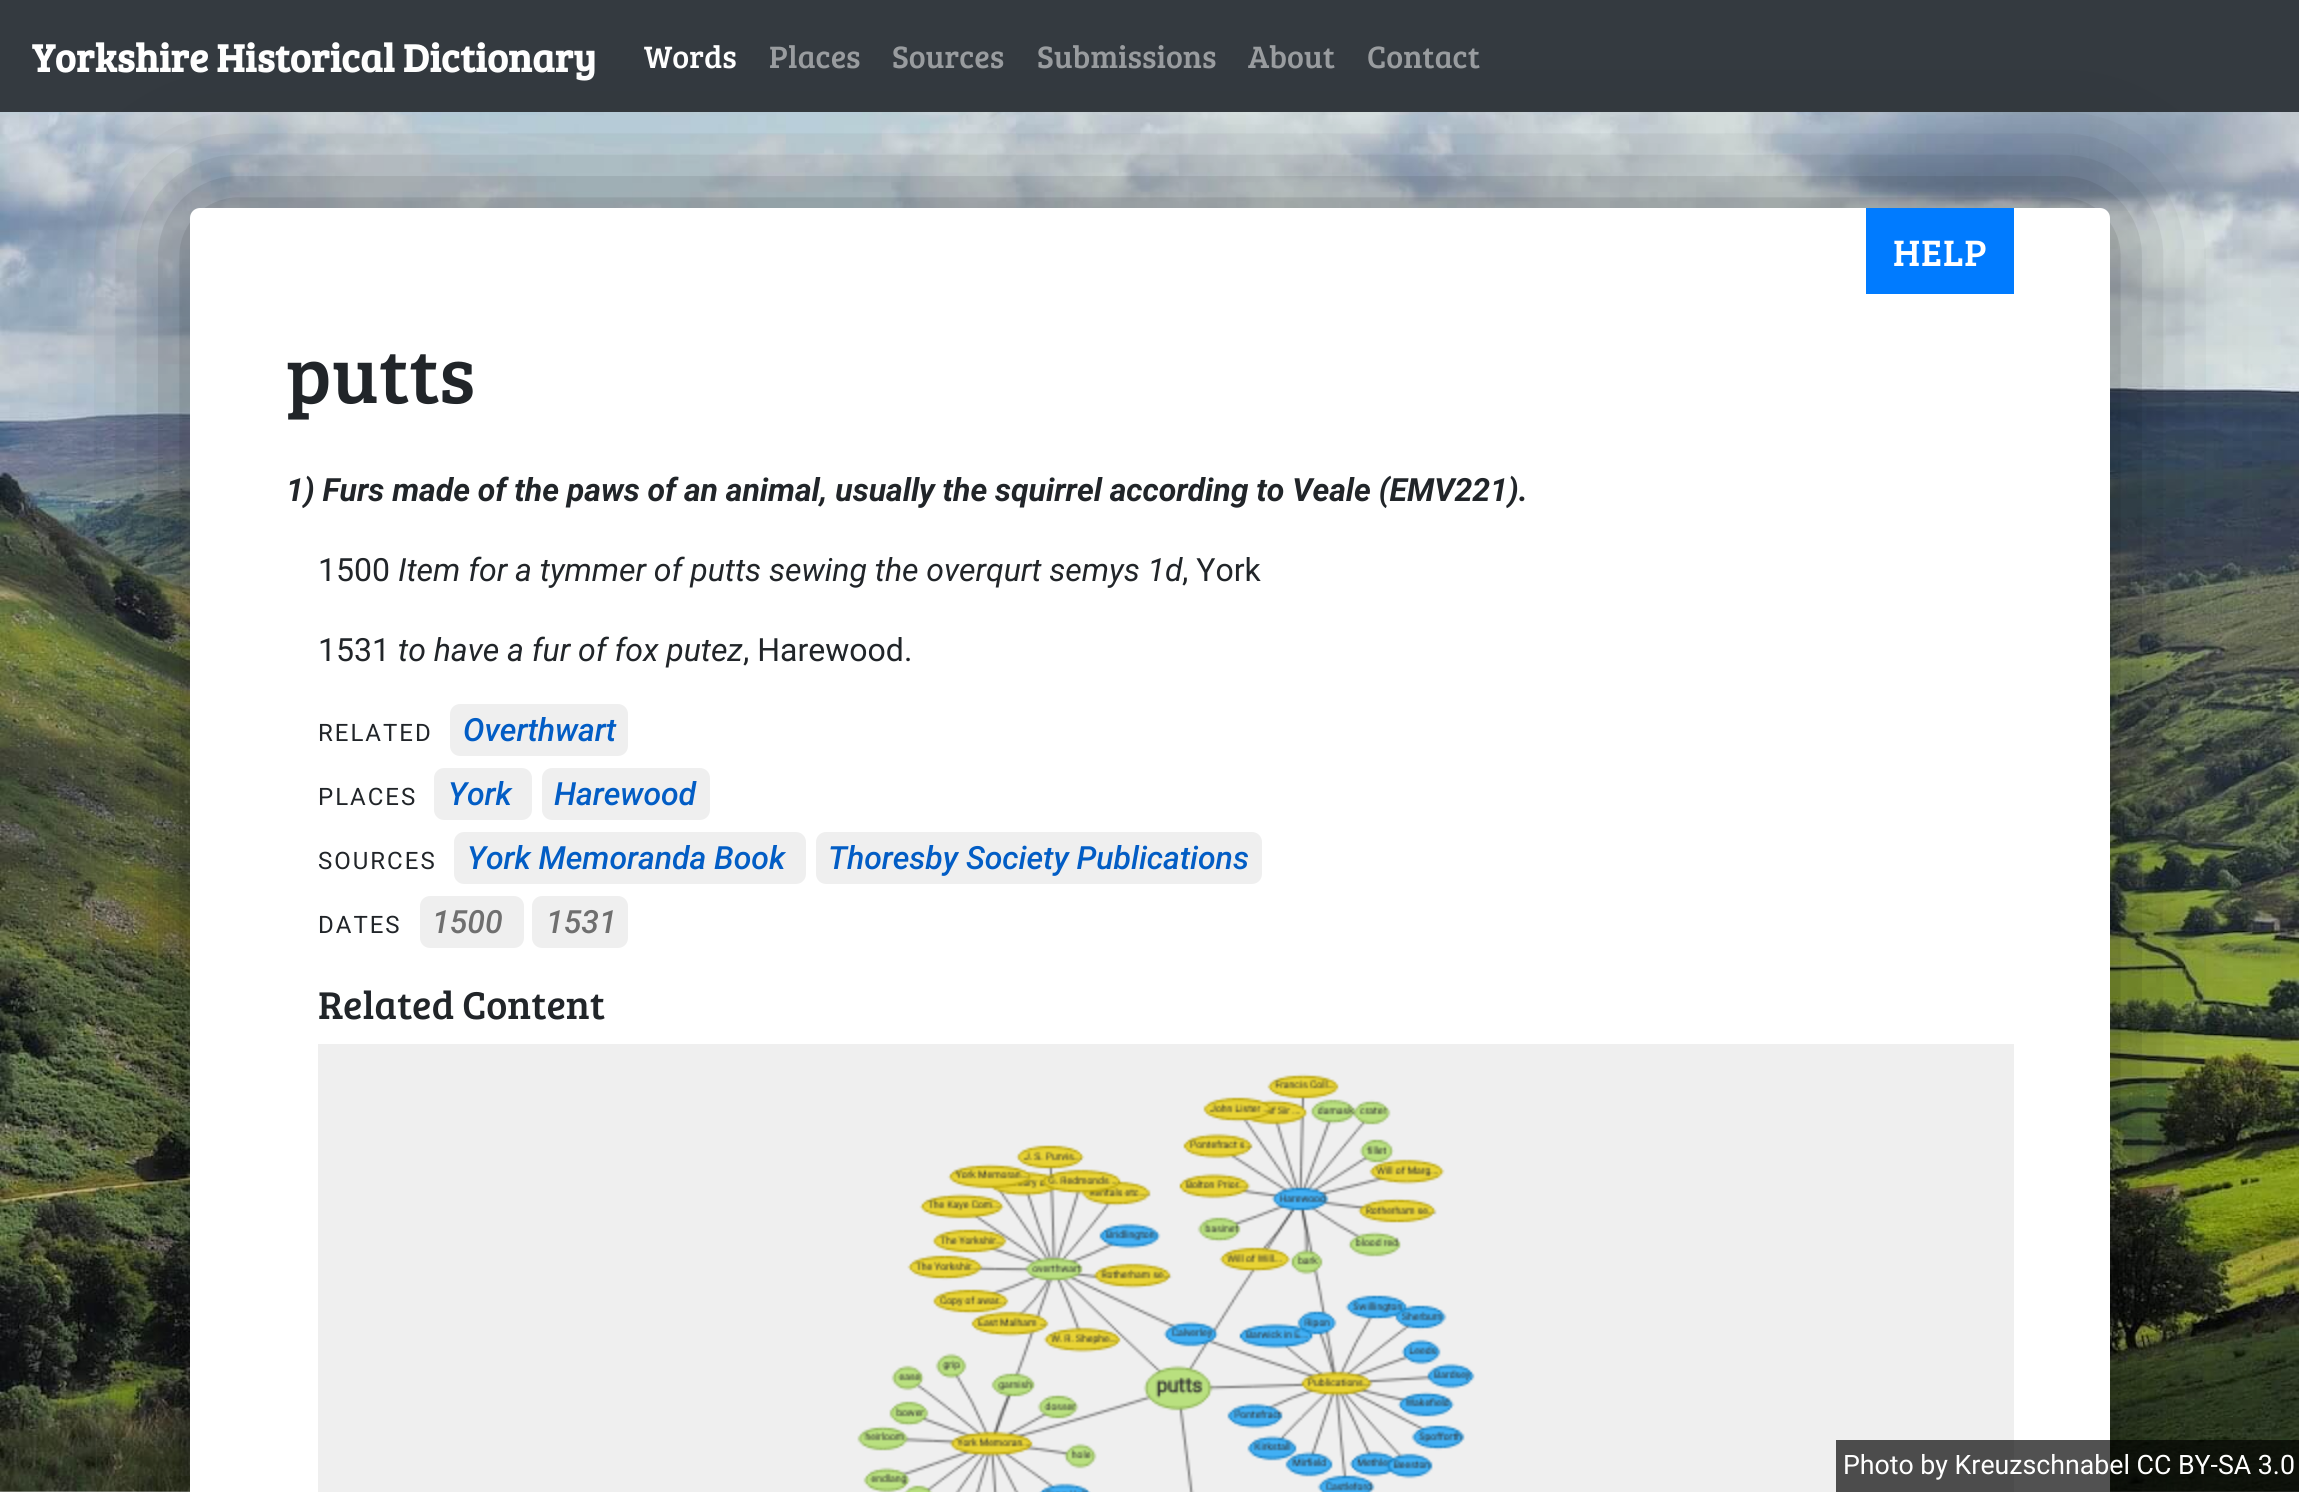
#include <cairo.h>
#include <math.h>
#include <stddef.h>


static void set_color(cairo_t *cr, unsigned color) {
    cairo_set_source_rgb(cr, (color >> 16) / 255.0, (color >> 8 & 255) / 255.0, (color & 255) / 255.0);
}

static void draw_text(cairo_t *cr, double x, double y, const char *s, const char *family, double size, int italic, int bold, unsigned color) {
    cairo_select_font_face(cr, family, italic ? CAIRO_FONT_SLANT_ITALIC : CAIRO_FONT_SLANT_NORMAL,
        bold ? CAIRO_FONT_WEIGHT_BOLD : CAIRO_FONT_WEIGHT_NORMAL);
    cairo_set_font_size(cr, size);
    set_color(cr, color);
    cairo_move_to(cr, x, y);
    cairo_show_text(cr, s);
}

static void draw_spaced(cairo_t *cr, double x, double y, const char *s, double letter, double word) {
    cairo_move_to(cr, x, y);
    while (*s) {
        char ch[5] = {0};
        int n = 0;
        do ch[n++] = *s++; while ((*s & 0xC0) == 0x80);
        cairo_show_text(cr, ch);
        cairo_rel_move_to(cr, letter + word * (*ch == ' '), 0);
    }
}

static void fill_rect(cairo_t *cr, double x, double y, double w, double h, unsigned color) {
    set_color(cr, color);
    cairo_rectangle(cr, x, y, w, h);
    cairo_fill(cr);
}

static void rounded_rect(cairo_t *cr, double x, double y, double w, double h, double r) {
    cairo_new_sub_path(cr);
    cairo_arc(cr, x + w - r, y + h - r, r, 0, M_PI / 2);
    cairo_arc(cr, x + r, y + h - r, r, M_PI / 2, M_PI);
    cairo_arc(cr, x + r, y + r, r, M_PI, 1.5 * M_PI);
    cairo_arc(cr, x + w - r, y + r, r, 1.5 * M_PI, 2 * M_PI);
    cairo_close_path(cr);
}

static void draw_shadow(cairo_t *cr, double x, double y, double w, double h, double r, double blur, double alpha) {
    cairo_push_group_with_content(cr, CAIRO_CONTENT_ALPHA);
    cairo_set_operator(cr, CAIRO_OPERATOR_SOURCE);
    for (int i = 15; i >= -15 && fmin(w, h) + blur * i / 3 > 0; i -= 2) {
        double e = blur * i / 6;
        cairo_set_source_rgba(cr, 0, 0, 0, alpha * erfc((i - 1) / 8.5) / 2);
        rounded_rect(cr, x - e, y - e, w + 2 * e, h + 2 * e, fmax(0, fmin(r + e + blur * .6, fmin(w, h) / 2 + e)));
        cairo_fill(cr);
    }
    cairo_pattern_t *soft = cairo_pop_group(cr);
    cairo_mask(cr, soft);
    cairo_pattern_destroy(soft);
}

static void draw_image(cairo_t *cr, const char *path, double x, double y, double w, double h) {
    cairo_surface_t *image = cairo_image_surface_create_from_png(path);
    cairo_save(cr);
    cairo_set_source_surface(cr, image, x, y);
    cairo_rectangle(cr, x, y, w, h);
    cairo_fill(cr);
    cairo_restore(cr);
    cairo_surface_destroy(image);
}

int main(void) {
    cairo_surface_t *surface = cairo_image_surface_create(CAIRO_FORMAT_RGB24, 2299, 1492);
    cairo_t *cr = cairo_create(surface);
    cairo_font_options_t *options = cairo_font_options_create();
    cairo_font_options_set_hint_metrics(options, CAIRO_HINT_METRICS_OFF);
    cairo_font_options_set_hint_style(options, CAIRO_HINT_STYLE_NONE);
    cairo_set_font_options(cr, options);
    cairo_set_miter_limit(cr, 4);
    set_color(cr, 0xFFFFFF);
    cairo_paint(cr);
    draw_image(cr, "assets/img1.png", 0, 112, 2299, 1380);
    fill_rect(cr, 0, 0, 2299, 112, 0x343A40);
    draw_text(cr, 32, 72, "Yorkshire Historical Dictionary", "Bree Serif", 40, 0, 1, 0xFFFFFF);
    draw_text(cr, 644, 68, "Words", "Bree Serif", 32, 0, 0, 0xFFFFFF);
    draw_text(cr, 769, 68, "Places", "Bree Serif", 32, 0, 0, 0x9A9DA0);
    draw_text(cr, 892, 68, "Sources", "Bree Serif", 32, 0, 0, 0x9A9DA0);
    draw_text(cr, 1037, 68, "Submissions", "Bree Serif", 32, 0, 0, 0x9A9DA0);
    draw_text(cr, 1248, 68, "About", "Bree Serif", 32, 0, 0, 0x9A9DA0);
    draw_text(cr, 1367, 68, "Contact", "Bree Serif", 32, 0, 0, 0x9A9DA0);
    set_color(cr, 0x000000);
    draw_shadow(cr, 190, 208, 1920, 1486, 10, 64, 0.52);
    set_color(cr, 0xFFFFFF);
    rounded_rect(cr, 190, 208, 1920, 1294, 10);
    cairo_fill(cr);
    fill_rect(cr, 1866, 208, 148, 86, 0x007BFF);
    cairo_set_font_size(cr, 38);
    set_color(cr, 0xFFFFFF);
    draw_spaced(cr, 1893, 266, "HELP", 1, 0);
    draw_text(cr, 286, 403, "putts", "Bree Serif", 80, 0, 0, 0x212529);
    draw_text(cr, 286, 501, "1) Furs made of the paws of an animal, usually the squirrel according to Veale (EMV221).", "Roboto", 32, 1, 1, 0x212529);
    draw_text(cr, 318, 581, "1500", "Roboto", 32, 0, 0, 0x212529);
    draw_text(cr, 398, 581, "Item for a tymmer of putts sewing the overqurt semys 1d", "Roboto", 32, 1, 0, 0x212529);
    draw_text(cr, 1182, 581, ", York", "Roboto", 32, 0, 0, 0x212529);
    draw_text(cr, 318, 661, "1531", "Roboto", 32, 0, 0, 0x212529);
    draw_text(cr, 398, 661, "to have a fur of fox putez", "Roboto", 32, 1, 0, 0x212529);
    draw_text(cr, 743, 661, ", Harewood.", "Roboto", 32, 0, 0, 0x212529);
    cairo_set_font_size(cr, 24);
    draw_spaced(cr, 318, 741, "RELATED", 2, 0);
    set_color(cr, 0xEFEFEF);
    rounded_rect(cr, 450, 704, 178, 52, 10);
    cairo_fill(cr);
    draw_text(cr, 463, 741, "Overthwart", "Roboto Medium", 32, 1, 0, 0x025DC5);
    cairo_select_font_face(cr, "Roboto", CAIRO_FONT_SLANT_NORMAL, CAIRO_FONT_WEIGHT_NORMAL);
    cairo_set_font_size(cr, 24);
    set_color(cr, 0x212529);
    draw_spaced(cr, 318, 805, "PLACES", 2, 0);
    set_color(cr, 0xEFEFEF);
    cairo_new_path(cr);
    cairo_move_to(cr, 444, 768);
    cairo_line_to(cr, 512, 768);
    cairo_line_to(cr, 512, 820);
    cairo_line_to(cr, 444, 820);
    cairo_curve_to(cr, 438.5, 820, 434, 815.5, 434, 810);
    cairo_line_to(cr, 434, 778);
    cairo_curve_to(cr, 434, 772.5, 438.5, 768, 444, 768);
    cairo_close_path(cr);
    cairo_fill(cr);
    cairo_new_path(cr);
    cairo_move_to(cr, 512, 768);
    cairo_line_to(cr, 522, 768);
    cairo_curve_to(cr, 527.5, 768, 532, 772.5, 532, 778);
    cairo_line_to(cr, 532, 810);
    cairo_curve_to(cr, 532, 815.5, 527.5, 820, 522, 820);
    cairo_line_to(cr, 512, 820);
    cairo_close_path(cr);
    cairo_fill(cr);
    draw_text(cr, 448, 805, "York", "Roboto Medium", 32, 1, 0, 0x025DC5);
    set_color(cr, 0xEFEFEF);
    rounded_rect(cr, 542, 768, 168, 52, 10);
    cairo_fill(cr);
    draw_text(cr, 554, 805, "Harewood", "Roboto Medium", 32, 1, 0, 0x025DC5);
    cairo_select_font_face(cr, "Roboto", CAIRO_FONT_SLANT_NORMAL, CAIRO_FONT_WEIGHT_NORMAL);
    cairo_set_font_size(cr, 24);
    set_color(cr, 0x212529);
    draw_spaced(cr, 318, 869, "SOURCES", 2, 0);
    set_color(cr, 0xEFEFEF);
    cairo_new_path(cr);
    cairo_move_to(cr, 464, 832);
    cairo_line_to(cr, 786, 832);
    cairo_line_to(cr, 786, 884);
    cairo_line_to(cr, 464, 884);
    cairo_curve_to(cr, 458.5, 884, 454, 879.5, 454, 874);
    cairo_line_to(cr, 454, 842);
    cairo_curve_to(cr, 454, 836.5, 458.5, 832, 464, 832);
    cairo_close_path(cr);
    cairo_fill(cr);
    cairo_new_path(cr);
    cairo_move_to(cr, 786, 832);
    cairo_line_to(cr, 796, 832);
    cairo_curve_to(cr, 801.5, 832, 806, 836.5, 806, 842);
    cairo_line_to(cr, 806, 874);
    cairo_curve_to(cr, 806, 879.5, 801.5, 884, 796, 884);
    cairo_line_to(cr, 786, 884);
    cairo_close_path(cr);
    cairo_fill(cr);
    draw_text(cr, 467, 869, "York Memoranda Book", "Roboto Medium", 32, 1, 0, 0x025DC5);
    set_color(cr, 0xEFEFEF);
    rounded_rect(cr, 816, 832, 446, 52, 10);
    cairo_fill(cr);
    draw_text(cr, 828, 869, "Thoresby Society Publications", "Roboto Medium", 32, 1, 0, 0x025DC5);
    cairo_select_font_face(cr, "Roboto", CAIRO_FONT_SLANT_NORMAL, CAIRO_FONT_WEIGHT_NORMAL);
    cairo_set_font_size(cr, 24);
    set_color(cr, 0x212529);
    draw_spaced(cr, 318, 933, "DATES", 2, 0);
    set_color(cr, 0xEFEFEF);
    rounded_rect(cr, 420, 896, 104, 52, 10);
    cairo_fill(cr);
    draw_text(cr, 432, 933, "1500", "Roboto Medium", 32, 1, 0, 0x6F6F6F);
    set_color(cr, 0xEFEFEF);
    rounded_rect(cr, 532, 896, 96, 52, 10);
    cairo_fill(cr);
    draw_text(cr, 546, 933, "1531", "Roboto Medium", 32, 1, 0, 0x6F6F6F);
    draw_text(cr, 318, 1019, "Related Content", "Bree Serif", 40, 0, 0, 0x212529);
    fill_rect(cr, 318, 1044, 1696, 448, 0xEFEFEF);
    draw_image(cr, "assets/img2.png", 857, 1073, 618, 419);
    cairo_set_source_rgba(cr, 0, 0, 0, 0.68);
    cairo_rectangle(cr, 1836, 1440, 463, 52);
    cairo_fill(cr);
    draw_text(cr, 1843, 1474, "Photo by Kreuzschnabel CC BY-SA 3.0", "Roboto", 26.7, 0, 0, 0xFFFFFF);
    cairo_surface_write_to_png(surface, "output.png");
    cairo_font_options_destroy(options);
    cairo_destroy(cr);
    cairo_surface_destroy(surface);
    return 0;
}
